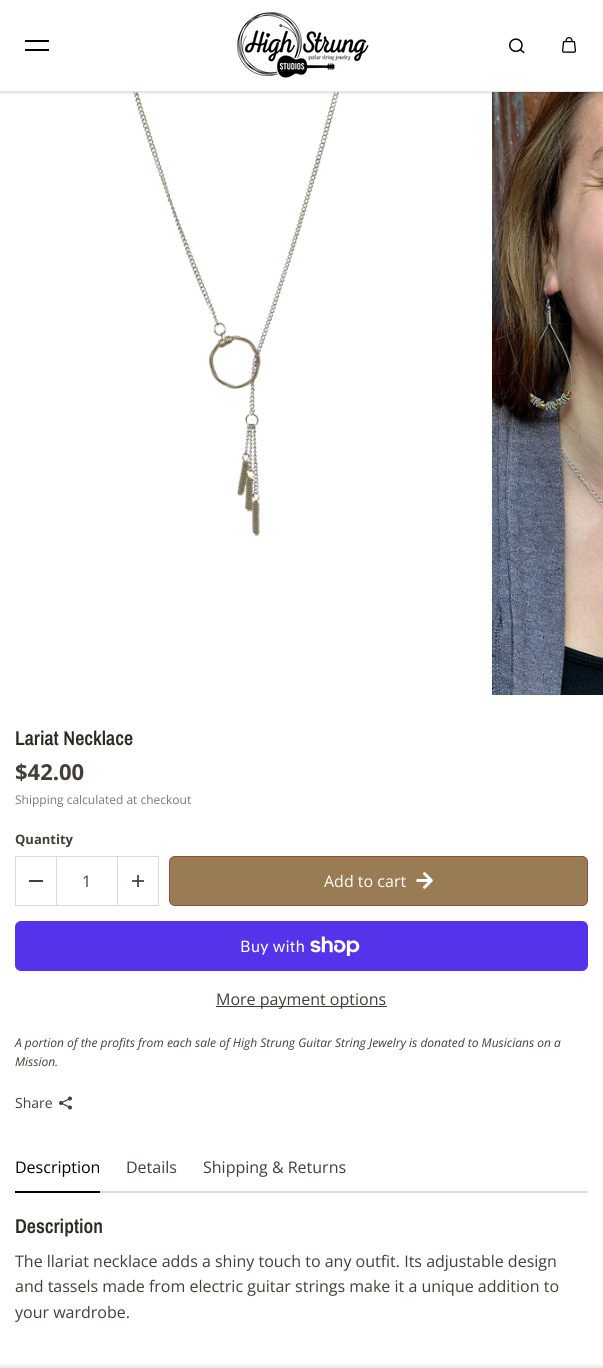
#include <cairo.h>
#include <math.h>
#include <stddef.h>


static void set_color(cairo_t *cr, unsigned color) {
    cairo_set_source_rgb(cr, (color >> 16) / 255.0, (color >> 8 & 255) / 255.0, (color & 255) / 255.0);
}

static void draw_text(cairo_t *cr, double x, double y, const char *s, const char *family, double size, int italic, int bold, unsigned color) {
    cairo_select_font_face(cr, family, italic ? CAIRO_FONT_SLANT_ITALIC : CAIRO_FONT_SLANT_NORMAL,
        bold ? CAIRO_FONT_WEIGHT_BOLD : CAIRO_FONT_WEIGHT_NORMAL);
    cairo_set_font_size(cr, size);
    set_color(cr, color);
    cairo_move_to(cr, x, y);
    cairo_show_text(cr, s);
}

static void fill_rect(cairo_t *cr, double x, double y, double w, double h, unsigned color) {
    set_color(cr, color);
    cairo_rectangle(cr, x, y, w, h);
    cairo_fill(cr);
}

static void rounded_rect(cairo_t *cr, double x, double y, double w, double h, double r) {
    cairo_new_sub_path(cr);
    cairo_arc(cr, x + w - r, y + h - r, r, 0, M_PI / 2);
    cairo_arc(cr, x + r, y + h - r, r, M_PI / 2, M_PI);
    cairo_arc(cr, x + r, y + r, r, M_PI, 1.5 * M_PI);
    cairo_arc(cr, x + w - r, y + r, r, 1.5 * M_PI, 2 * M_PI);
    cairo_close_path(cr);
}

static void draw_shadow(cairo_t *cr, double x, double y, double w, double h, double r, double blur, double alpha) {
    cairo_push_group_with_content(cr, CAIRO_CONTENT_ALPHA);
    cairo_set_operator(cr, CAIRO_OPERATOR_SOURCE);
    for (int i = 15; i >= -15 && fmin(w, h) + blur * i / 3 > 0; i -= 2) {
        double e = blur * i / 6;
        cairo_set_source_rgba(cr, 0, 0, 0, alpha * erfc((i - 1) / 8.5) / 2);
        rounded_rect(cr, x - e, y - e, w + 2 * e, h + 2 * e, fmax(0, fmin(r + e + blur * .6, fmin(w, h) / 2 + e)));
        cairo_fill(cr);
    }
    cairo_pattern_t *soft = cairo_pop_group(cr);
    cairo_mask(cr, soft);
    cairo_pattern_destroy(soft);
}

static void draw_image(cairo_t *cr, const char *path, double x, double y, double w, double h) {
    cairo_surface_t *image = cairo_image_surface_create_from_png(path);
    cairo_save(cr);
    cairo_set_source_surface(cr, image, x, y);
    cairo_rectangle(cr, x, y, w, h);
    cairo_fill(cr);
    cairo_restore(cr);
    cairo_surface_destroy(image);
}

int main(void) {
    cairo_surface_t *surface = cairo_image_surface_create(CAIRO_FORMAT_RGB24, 603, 1368);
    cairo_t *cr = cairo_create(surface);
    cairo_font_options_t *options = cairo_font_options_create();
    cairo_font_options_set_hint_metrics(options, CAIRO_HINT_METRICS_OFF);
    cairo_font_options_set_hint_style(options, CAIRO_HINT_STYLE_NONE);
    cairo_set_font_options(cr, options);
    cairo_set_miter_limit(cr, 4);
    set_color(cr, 0xFFFFFF);
    cairo_paint(cr);
    draw_image(cr, "assets/img4.png", 133, 92, 206, 444);
    draw_image(cr, "assets/img5.png", 492, 92, 111, 603);
    set_color(cr, 0x000000);
    draw_shadow(cr, 0, 0, 603, 92, 0, 2, 0.21);
    fill_rect(cr, 0, 0, 603, 91, 0xFFFFFF);
    fill_rect(cr, 0, 91, 603, 1, 0xE6E6E6);
    fill_rect(cr, 25, 40, 24, 2, 0x000000);
    fill_rect(cr, 25, 49, 24, 2, 0x000000);
    draw_image(cr, "assets/img1.png", 236, 12, 133, 66);
    draw_image(cr, "assets/img2.png", 509, 38, 16, 16);
    draw_image(cr, "assets/img3.png", 562, 37, 14, 16);
    draw_text(cr, 15, 745, "Lariat Necklace", "Archivo Narrow SemiBold", 20, 0, 0, 0x2D2923);
    draw_text(cr, 15, 780, "$42.00", "Open Sans", 22, 0, 1, 0x433F37);
    draw_text(cr, 15, 804, "Shipping calculated at checkout", "Open Sans", 12, 0, 0, 0x7B7973);
    draw_text(cr, 15, 844, "Quantity", "Open Sans", 13, 0, 1, 0x433F37);
    cairo_rectangle(cr, 15.5, 856.5, 41, 49);
    set_color(cr, 0xD9D9D7);
    cairo_set_line_width(cr, 1);
    cairo_stroke(cr);
    fill_rect(cr, 29, 880, 14, 2, 0x433F37);
    fill_rect(cr, 57, 856, 60, 1, 0xD9D9D7);
    fill_rect(cr, 57, 905, 60, 1, 0xD9D9D7);
    draw_text(cr, 82, 887, "1", "Open Sans", 16, 0, 0, 0x433F37);
    cairo_rectangle(cr, 117.5, 856.5, 41, 49);
    set_color(cr, 0xD9D9D7);
    cairo_stroke(cr);
    draw_image(cr, "assets/img6.png", 132, 875, 12, 12);
    set_color(cr, 0x997C54);
    rounded_rect(cr, 169.5, 856.5, 418, 49, 5.5);
    cairo_fill_preserve(cr);
    set_color(cr, 0x8B4D46);
    cairo_stroke(cr);
    draw_text(cr, 324, 887, "Add to cart", "Open Sans", 16, 0, 0, 0xFFFFFF);
    draw_image(cr, "assets/img7.png", 416, 872, 17, 17);
    set_color(cr, 0x5433EB);
    rounded_rect(cr, 15, 921, 573, 50, 6);
    cairo_fill(cr);
    draw_text(cr, 240, 952, "Buy with", "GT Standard", 16, 0, 0, 0xFFFFFF);
    draw_image(cr, "assets/img8.png", 310, 936, 50, 20);
    fill_rect(cr, 216, 1006, 171, 1, 0x433F37);
    draw_text(cr, 216, 1005, "More payment options", "Open Sans", 16, 0, 0, 0x433F37);
    draw_text(cr, 15, 1047, "A portion of the profits from each sale of High Strung Guitar String Jewelry is donated to Musicians on a", "Open Sans", 12, 1, 0, 0x433F37);
    draw_text(cr, 15, 1066, "Mission.", "Open Sans", 12, 1, 0, 0x433F37);
    draw_text(cr, 15, 1108, "Share", "Open Sans", 14, 0, 0, 0x433F37);
    draw_image(cr, "assets/img9.png", 59, 1096, 13, 14);
    fill_rect(cr, 100, 1191, 488, 2, 0xDEDEDE);
    draw_text(cr, 15, 1173, "Description", "Open Sans", 16, 0, 0, 0x000000);
    fill_rect(cr, 15, 1191, 85, 2, 0x000000);
    draw_text(cr, 126, 1173, "Details", "Open Sans", 16, 0, 0, 0x433F37);
    draw_text(cr, 203, 1173, "Shipping & Returns", "Open Sans", 16, 0, 0, 0x433F37);
    draw_text(cr, 15, 1233, "Description", "Archivo Narrow SemiBold", 20, 0, 0, 0x2D2923);
    draw_text(cr, 15, 1267, "The llariat necklace adds a shiny touch to any outfit. Its adjustable design", "Open Sans", 16, 0, 0, 0x433F37);
    draw_text(cr, 15, 1292, "and tassels made from electric guitar strings make it a unique addition to", "Open Sans", 16, 0, 0, 0x433F37);
    draw_text(cr, 15, 1318, "your wardrobe.", "Open Sans", 16, 0, 0, 0x433F37);
    set_color(cr, 0x433F37);
    draw_shadow(cr, -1, 1367, 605, 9, 0, 2.5, 0.2);
    cairo_surface_write_to_png(surface, "output.png");
    cairo_font_options_destroy(options);
    cairo_destroy(cr);
    cairo_surface_destroy(surface);
    return 0;
}
